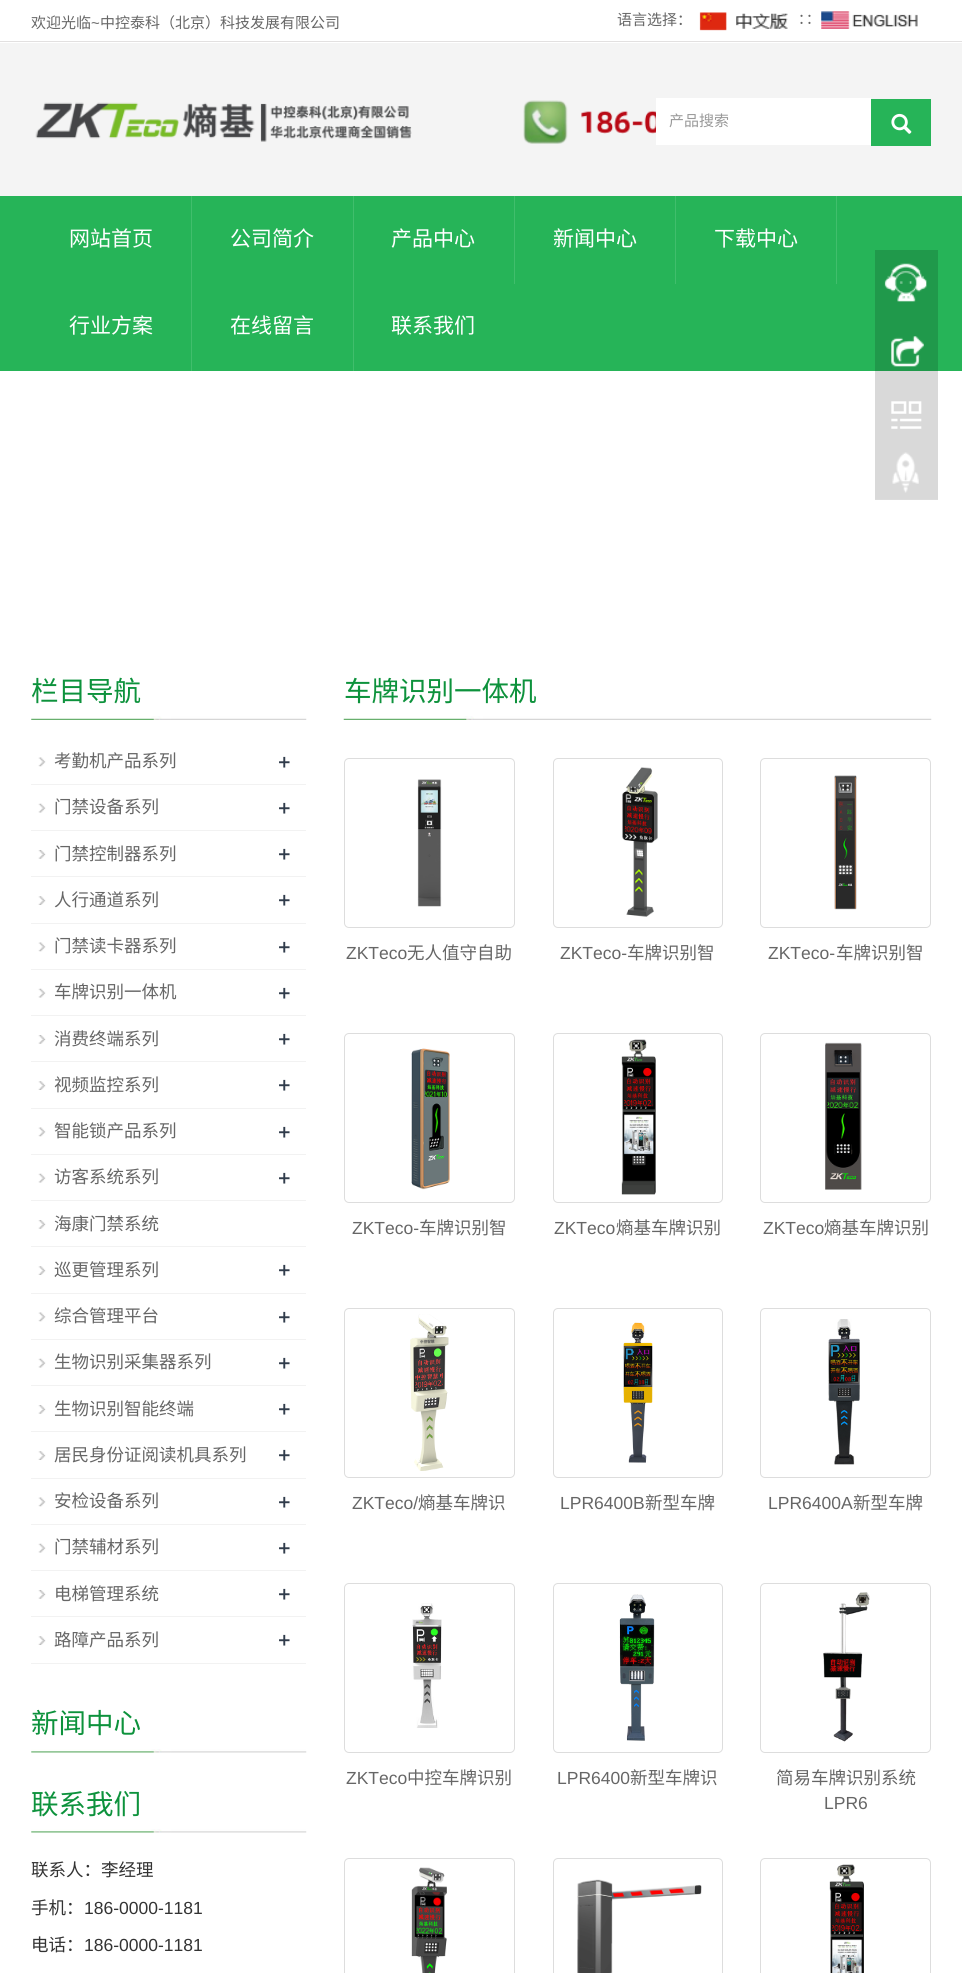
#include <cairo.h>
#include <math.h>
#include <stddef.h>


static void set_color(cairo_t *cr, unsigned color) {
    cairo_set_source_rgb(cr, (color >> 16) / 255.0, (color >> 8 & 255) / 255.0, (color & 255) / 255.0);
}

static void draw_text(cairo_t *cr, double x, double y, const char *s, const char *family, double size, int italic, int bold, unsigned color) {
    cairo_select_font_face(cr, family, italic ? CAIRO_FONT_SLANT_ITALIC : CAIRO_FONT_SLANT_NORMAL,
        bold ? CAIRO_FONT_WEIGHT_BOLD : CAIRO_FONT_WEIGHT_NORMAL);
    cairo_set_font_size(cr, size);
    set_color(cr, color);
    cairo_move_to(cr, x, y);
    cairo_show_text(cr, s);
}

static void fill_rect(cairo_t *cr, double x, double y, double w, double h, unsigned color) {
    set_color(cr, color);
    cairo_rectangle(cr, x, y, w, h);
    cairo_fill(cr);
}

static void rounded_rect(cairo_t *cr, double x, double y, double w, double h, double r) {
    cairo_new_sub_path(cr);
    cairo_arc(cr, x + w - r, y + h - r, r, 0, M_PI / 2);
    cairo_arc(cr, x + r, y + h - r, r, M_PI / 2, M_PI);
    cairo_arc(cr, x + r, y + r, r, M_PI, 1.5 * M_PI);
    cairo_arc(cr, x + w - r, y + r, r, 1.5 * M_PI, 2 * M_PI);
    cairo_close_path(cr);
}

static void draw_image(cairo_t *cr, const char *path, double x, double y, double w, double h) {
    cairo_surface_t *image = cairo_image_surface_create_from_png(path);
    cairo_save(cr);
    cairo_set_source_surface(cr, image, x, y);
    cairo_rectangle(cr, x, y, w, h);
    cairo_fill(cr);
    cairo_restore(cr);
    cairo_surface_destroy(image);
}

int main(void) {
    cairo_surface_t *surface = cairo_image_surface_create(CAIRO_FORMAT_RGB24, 962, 1973);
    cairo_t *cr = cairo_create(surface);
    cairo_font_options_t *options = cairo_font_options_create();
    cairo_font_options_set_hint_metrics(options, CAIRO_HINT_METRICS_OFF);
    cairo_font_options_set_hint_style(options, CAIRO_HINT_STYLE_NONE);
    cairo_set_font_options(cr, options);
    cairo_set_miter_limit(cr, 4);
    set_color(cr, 0xFFFFFF);
    cairo_paint(cr);
    fill_rect(cr, 0, 43, 962, 153, 0xF4F4F4);
    fill_rect(cr, 0, 41, 962, 1, 0xE2E0E0);
    draw_text(cr, 31, 28, "欢迎光临", "Noto Sans CJK SC", 15, 0, 0, 0x666666);
    draw_text(cr, 91, 28, "~", "Liberation Sans", 15, 0, 0, 0x666666);
    draw_text(cr, 100, 28, "中控泰科（北京）科技发展有限公司", "Noto Sans CJK SC", 15, 0, 0, 0x666666);
    draw_text(cr, 617, 25, "语言选择：", "Noto Sans CJK SC", 15, 0, 0, 0x666666);
    draw_image(cr, "assets/img1.png", 699, 12, 89, 19);
    draw_text(cr, 798, 25, "∷", "Noto Sans CJK SC", 15, 0, 0, 0x666666);
    draw_image(cr, "assets/img2.png", 821, 11, 97, 18);
    draw_image(cr, "assets/img3.png", 35, 100, 621, 44);
    fill_rect(cr, 656, 98, 215, 47, 0xFFFFFF);
    draw_text(cr, 669, 126, "产品搜索", "Noto Sans CJK SC", 15, 0, 0, 0x999999);
    fill_rect(cr, 871, 99, 60, 47, 0x26B458);
    draw_image(cr, "assets/img4.png", 891, 113, 21, 21);
    fill_rect(cr, 0, 196, 962, 175, 0x26B458);
    fill_rect(cr, 191, 196, 1, 175, 0x40BE6C);
    draw_text(cr, 69, 246, "网站首页", "Noto Sans CJK SC", 21, 0, 0, 0xFFFFFF);
    fill_rect(cr, 353, 196, 1, 175, 0x40BE6C);
    draw_text(cr, 230, 246, "公司简介", "Noto Sans CJK SC", 21, 0, 0, 0xFFFFFF);
    fill_rect(cr, 514, 196, 1, 88, 0x40BE6C);
    draw_text(cr, 391, 246, "产品中心", "Noto Sans CJK SC", 21, 0, 0, 0xFFFFFF);
    fill_rect(cr, 675, 196, 1, 88, 0x40BE6C);
    draw_text(cr, 553, 246, "新闻中心", "Noto Sans CJK SC", 21, 0, 0, 0xFFFFFF);
    fill_rect(cr, 836, 196, 1, 88, 0x40BE6C);
    draw_text(cr, 714, 246, "下载中心", "Noto Sans CJK SC", 21, 0, 0, 0xFFFFFF);
    draw_text(cr, 69, 333, "行业方案", "Noto Sans CJK SC", 21, 0, 0, 0xFFFFFF);
    draw_text(cr, 230, 333, "在线留言", "Noto Sans CJK SC", 21, 0, 0, 0xFFFFFF);
    draw_text(cr, 391, 333, "联系我们", "Noto Sans CJK SC", 21, 0, 0, 0xFFFFFF);
    draw_image(cr, "assets/img5.png", 875, 250, 63, 250);
    draw_image(cr, "assets/img6.png", 31, 716, 276, 4);
    draw_text(cr, 31, 701, "栏目导航", "Noto Sans CJK SC", 27.5, 0, 0, 0x0D923C);
    draw_image(cr, "assets/img7.png", 38, 757, 8, 10);
    fill_rect(cr, 31, 784, 275, 1, 0xF2F2F2);
    draw_text(cr, 54, 767, "考勤机产品系列", "Noto Sans CJK SC", 17.5, 0, 0, 0x666666);
    draw_text(cr, 278, 770, "+", "Open Sans SemiBold", 22, 0, 0, 0x303C4B);
    draw_image(cr, "assets/img8.png", 38, 803, 8, 10);
    fill_rect(cr, 31, 830, 275, 1, 0xF2F2F2);
    draw_text(cr, 54, 813, "门禁设备系列", "Noto Sans CJK SC", 17.5, 0, 0, 0x666666);
    draw_text(cr, 278, 816, "+", "Open Sans SemiBold", 22, 0, 0, 0x303C4B);
    draw_image(cr, "assets/img9.png", 38, 850, 8, 9);
    fill_rect(cr, 31, 876, 275, 1, 0xF2F2F2);
    draw_text(cr, 54, 860, "门禁控制器系列", "Noto Sans CJK SC", 17.5, 0, 0, 0x666666);
    draw_text(cr, 278, 862, "+", "Open Sans SemiBold", 22, 0, 0, 0x303C4B);
    draw_image(cr, "assets/img10.png", 38, 896, 8, 9);
    fill_rect(cr, 31, 923, 275, 1, 0xF2F2F2);
    draw_text(cr, 54, 906, "人行通道系列", "Noto Sans CJK SC", 17.5, 0, 0, 0x666666);
    draw_text(cr, 278, 908, "+", "Open Sans SemiBold", 22, 0, 0, 0x303C4B);
    draw_image(cr, "assets/img7.png", 38, 942, 8, 10);
    fill_rect(cr, 31, 969, 275, 1, 0xF2F2F2);
    draw_text(cr, 54, 952, "门禁读卡器系列", "Noto Sans CJK SC", 17.5, 0, 0, 0x666666);
    draw_text(cr, 278, 955, "+", "Open Sans SemiBold", 22, 0, 0, 0x303C4B);
    draw_image(cr, "assets/img8.png", 38, 988, 8, 10);
    fill_rect(cr, 31, 1015, 275, 1, 0xF2F2F2);
    draw_text(cr, 54, 998, "车牌识别一体机", "Noto Sans CJK SC", 17.5, 0, 0, 0x666666);
    draw_text(cr, 278, 1001, "+", "Open Sans SemiBold", 22, 0, 0, 0x303C4B);
    draw_image(cr, "assets/img9.png", 38, 1035, 8, 9);
    fill_rect(cr, 31, 1061, 275, 1, 0xF2F2F2);
    draw_text(cr, 54, 1045, "消费终端系列", "Noto Sans CJK SC", 17.5, 0, 0, 0x666666);
    draw_text(cr, 278, 1047, "+", "Open Sans SemiBold", 22, 0, 0, 0x303C4B);
    draw_image(cr, "assets/img10.png", 38, 1081, 8, 9);
    fill_rect(cr, 31, 1108, 275, 1, 0xF2F2F2);
    draw_text(cr, 54, 1091, "视频监控系列", "Noto Sans CJK SC", 17.5, 0, 0, 0x666666);
    draw_text(cr, 278, 1093, "+", "Open Sans SemiBold", 22, 0, 0, 0x303C4B);
    draw_image(cr, "assets/img7.png", 38, 1127, 8, 10);
    fill_rect(cr, 31, 1154, 275, 1, 0xF2F2F2);
    draw_text(cr, 54, 1137, "智能锁产品系列", "Noto Sans CJK SC", 17.5, 0, 0, 0x666666);
    draw_text(cr, 278, 1140, "+", "Open Sans SemiBold", 22, 0, 0, 0x303C4B);
    draw_image(cr, "assets/img11.png", 38, 1173, 8, 10);
    fill_rect(cr, 31, 1200, 275, 1, 0xF2F2F2);
    draw_text(cr, 54, 1183, "访客系统系列", "Noto Sans CJK SC", 17.5, 0, 0, 0x666666);
    draw_text(cr, 278, 1186, "+", "Open Sans SemiBold", 22, 0, 0, 0x303C4B);
    draw_image(cr, "assets/img9.png", 38, 1220, 8, 9);
    fill_rect(cr, 31, 1246, 275, 1, 0xF2F2F2);
    draw_text(cr, 54, 1230, "海康门禁系统", "Noto Sans CJK SC", 17.5, 0, 0, 0x666666);
    draw_image(cr, "assets/img10.png", 38, 1266, 8, 9);
    fill_rect(cr, 31, 1293, 275, 1, 0xF2F2F2);
    draw_text(cr, 54, 1276, "巡更管理系列", "Noto Sans CJK SC", 17.5, 0, 0, 0x666666);
    draw_text(cr, 278, 1278, "+", "Open Sans SemiBold", 22, 0, 0, 0x303C4B);
    draw_image(cr, "assets/img7.png", 38, 1312, 8, 10);
    fill_rect(cr, 31, 1339, 275, 1, 0xF2F2F2);
    draw_text(cr, 54, 1322, "综合管理平台", "Noto Sans CJK SC", 17.5, 0, 0, 0x666666);
    draw_text(cr, 278, 1325, "+", "Open Sans SemiBold", 22, 0, 0, 0x303C4B);
    draw_image(cr, "assets/img8.png", 38, 1358, 8, 10);
    fill_rect(cr, 31, 1385, 275, 1, 0xF2F2F2);
    draw_text(cr, 54, 1368, "生物识别采集器系列", "Noto Sans CJK SC", 17.5, 0, 0, 0x666666);
    draw_text(cr, 278, 1371, "+", "Open Sans SemiBold", 22, 0, 0, 0x303C4B);
    draw_image(cr, "assets/img9.png", 38, 1405, 8, 9);
    fill_rect(cr, 31, 1431, 275, 1, 0xF2F2F2);
    draw_text(cr, 54, 1415, "生物识别智能终端", "Noto Sans CJK SC", 17.5, 0, 0, 0x666666);
    draw_text(cr, 278, 1417, "+", "Open Sans SemiBold", 22, 0, 0, 0x303C4B);
    draw_image(cr, "assets/img10.png", 38, 1451, 8, 9);
    fill_rect(cr, 31, 1478, 275, 1, 0xF2F2F2);
    draw_text(cr, 54, 1461, "居民身份证阅读机具系列", "Noto Sans CJK SC", 17.5, 0, 0, 0x666666);
    draw_text(cr, 278, 1463, "+", "Open Sans SemiBold", 22, 0, 0, 0x303C4B);
    draw_image(cr, "assets/img7.png", 38, 1497, 8, 10);
    fill_rect(cr, 31, 1524, 275, 1, 0xF2F2F2);
    draw_text(cr, 54, 1507, "安检设备系列", "Noto Sans CJK SC", 17.5, 0, 0, 0x666666);
    draw_text(cr, 278, 1510, "+", "Open Sans SemiBold", 22, 0, 0, 0x303C4B);
    draw_image(cr, "assets/img8.png", 38, 1543, 8, 10);
    fill_rect(cr, 31, 1570, 275, 1, 0xF2F2F2);
    draw_text(cr, 54, 1553, "门禁辅材系列", "Noto Sans CJK SC", 17.5, 0, 0, 0x666666);
    draw_text(cr, 278, 1556, "+", "Open Sans SemiBold", 22, 0, 0, 0x303C4B);
    draw_image(cr, "assets/img9.png", 38, 1590, 8, 9);
    fill_rect(cr, 31, 1616, 275, 1, 0xF2F2F2);
    draw_text(cr, 54, 1600, "电梯管理系统", "Noto Sans CJK SC", 17.5, 0, 0, 0x666666);
    draw_text(cr, 278, 1602, "+", "Open Sans SemiBold", 22, 0, 0, 0x303C4B);
    draw_image(cr, "assets/img10.png", 38, 1636, 8, 9);
    fill_rect(cr, 31, 1663, 275, 1, 0xF2F2F2);
    draw_text(cr, 54, 1646, "路障产品系列", "Noto Sans CJK SC", 17.5, 0, 0, 0x666666);
    draw_text(cr, 278, 1648, "+", "Open Sans SemiBold", 22, 0, 0, 0x303C4B);
    draw_image(cr, "assets/img12.png", 31, 1749, 276, 4);
    draw_text(cr, 31, 1733, "新闻中心", "Noto Sans CJK SC", 27.5, 0, 0, 0x0D923C);
    draw_image(cr, "assets/img12.png", 31, 1829, 276, 4);
    draw_text(cr, 31, 1814, "联系我们", "Noto Sans CJK SC", 27.5, 0, 0, 0x0D923C);
    draw_text(cr, 31, 1876, "联系人：李经理", "Noto Sans CJK SC", 17.5, 0, 0, 0x333333);
    draw_text(cr, 31, 1914, "手机：", "Noto Sans CJK SC", 17.5, 0, 0, 0x333333);
    draw_text(cr, 84, 1914, "186-0000-1181", "Liberation Sans", 17.5, 0, 0, 0x333333);
    draw_text(cr, 31, 1951, "电话：", "Noto Sans CJK SC", 17.5, 0, 0, 0x333333);
    draw_text(cr, 84, 1951, "186-0000-1181", "Liberation Sans", 17.5, 0, 0, 0x333333);
    draw_image(cr, "assets/img13.png", 343, 716, 589, 4);
    draw_text(cr, 344, 701, "车牌识别一体机", "Noto Sans CJK SC", 27.5, 0, 0, 0x0D923C);
    rounded_rect(cr, 344.5, 758.5, 170, 169, 4.5);
    set_color(cr, 0xDDDDDD);
    cairo_set_line_width(cr, 1);
    cairo_stroke(cr);
    draw_image(cr, "assets/img14.png", 417, 779, 25, 128);
    draw_text(cr, 346, 959, "ZKTeco", "Liberation Sans", 17.5, 0, 0, 0x666666);
    draw_text(cr, 407, 959, "无人值守自助", "Noto Sans CJK SC", 17.5, 0, 0, 0x666666);
    rounded_rect(cr, 553.5, 758.5, 169, 169, 4.5);
    set_color(cr, 0xDDDDDD);
    cairo_stroke(cr);
    draw_image(cr, "assets/img15.png", 622, 767, 36, 150);
    draw_text(cr, 560, 959, "ZKTeco-", "Liberation Sans", 17.5, 0, 0, 0x666666);
    draw_text(cr, 627, 959, "车牌识别智", "Noto Sans CJK SC", 17.5, 0, 0, 0x666666);
    rounded_rect(cr, 760.5, 758.5, 170, 169, 4.5);
    set_color(cr, 0xDDDDDD);
    cairo_stroke(cr);
    draw_image(cr, "assets/img16.png", 834, 775, 23, 135);
    draw_text(cr, 768, 959, "ZKTeco-", "Liberation Sans", 17.5, 0, 0, 0x666666);
    draw_text(cr, 836, 959, "车牌识别智", "Noto Sans CJK SC", 17.5, 0, 0, 0x666666);
    rounded_rect(cr, 344.5, 1033.5, 170, 169, 4.5);
    set_color(cr, 0xDDDDDD);
    cairo_stroke(cr);
    draw_image(cr, "assets/img17.png", 411, 1048, 39, 142);
    draw_text(cr, 352, 1234, "ZKTeco-", "Liberation Sans", 17.5, 0, 0, 0x666666);
    draw_text(cr, 419, 1234, "车牌识别智", "Noto Sans CJK SC", 17.5, 0, 0, 0x666666);
    rounded_rect(cr, 553.5, 1033.5, 169, 169, 4.5);
    set_color(cr, 0xDDDDDD);
    cairo_stroke(cr);
    draw_image(cr, "assets/img18.png", 621, 1039, 35, 156);
    draw_text(cr, 554, 1234, "ZKTeco", "Liberation Sans", 17.5, 0, 0, 0x666666);
    draw_text(cr, 616, 1234, "熵基车牌识别", "Noto Sans CJK SC", 17.5, 0, 0, 0x666666);
    rounded_rect(cr, 760.5, 1033.5, 170, 169, 4.5);
    set_color(cr, 0xDDDDDD);
    cairo_stroke(cr);
    draw_image(cr, "assets/img19.png", 825, 1042, 37, 148);
    draw_text(cr, 763, 1234, "ZKTeco", "Liberation Sans", 17.5, 0, 0, 0x666666);
    draw_text(cr, 824, 1234, "熵基车牌识别", "Noto Sans CJK SC", 17.5, 0, 0, 0x666666);
    rounded_rect(cr, 344.5, 1308.5, 170, 169, 4.5);
    set_color(cr, 0xDDDDDD);
    cairo_stroke(cr);
    draw_image(cr, "assets/img20.png", 410, 1314, 39, 157);
    draw_text(cr, 352, 1509, "ZKTeco/", "Liberation Sans", 17.5, 0, 0, 0x666666);
    draw_text(cr, 418, 1509, "熵基车牌识", "Noto Sans CJK SC", 17.5, 0, 0, 0x666666);
    rounded_rect(cr, 553.5, 1308.5, 169, 169, 4.5);
    set_color(cr, 0xDDDDDD);
    cairo_stroke(cr);
    draw_image(cr, "assets/img21.png", 623, 1322, 30, 141);
    draw_text(cr, 560, 1509, "LPR6400B", "Liberation Sans", 17.5, 0, 0, 0x666666);
    draw_text(cr, 645, 1509, "新型车牌", "Noto Sans CJK SC", 17.5, 0, 0, 0x666666);
    rounded_rect(cr, 760.5, 1308.5, 170, 169, 4.5);
    set_color(cr, 0xDDDDDD);
    cairo_stroke(cr);
    draw_image(cr, "assets/img22.png", 828, 1319, 32, 146);
    draw_text(cr, 768, 1509, "LPR6400A", "Liberation Sans", 17.5, 0, 0, 0x666666);
    draw_text(cr, 853, 1509, "新型车牌", "Noto Sans CJK SC", 17.5, 0, 0, 0x666666);
    rounded_rect(cr, 344.5, 1583.5, 170, 169, 4.5);
    set_color(cr, 0xDDDDDD);
    cairo_stroke(cr);
    draw_image(cr, "assets/img23.png", 412, 1603, 30, 125);
    draw_text(cr, 346, 1784, "ZKTeco", "Liberation Sans", 17.5, 0, 0, 0x666666);
    draw_text(cr, 407, 1784, "中控车牌识别", "Noto Sans CJK SC", 17.5, 0, 0, 0x666666);
    rounded_rect(cr, 553.5, 1583.5, 169, 169, 4.5);
    set_color(cr, 0xDDDDDD);
    cairo_stroke(cr);
    draw_image(cr, "assets/img24.png", 619, 1594, 36, 147);
    draw_text(cr, 557, 1784, "LPR6400", "Liberation Sans", 17.5, 0, 0, 0x666666);
    draw_text(cr, 630, 1784, "新型车牌识", "Noto Sans CJK SC", 17.5, 0, 0, 0x666666);
    rounded_rect(cr, 760.5, 1583.5, 170, 169, 4.5);
    set_color(cr, 0xDDDDDD);
    cairo_stroke(cr);
    draw_image(cr, "assets/img25.png", 823, 1592, 47, 150);
    draw_text(cr, 776, 1784, "简易车牌识别系统", "Noto Sans CJK SC", 17.5, 0, 0, 0x666666);
    draw_text(cr, 824, 1809, "LPR6", "Liberation Sans", 17.5, 0, 0, 0x666666);
    rounded_rect(cr, 344.5, 1858.5, 170, 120, 4.5);
    set_color(cr, 0xDDDDDD);
    cairo_stroke(cr);
    draw_image(cr, "assets/img26.png", 411, 1867, 36, 106);
    rounded_rect(cr, 553.5, 1858.5, 169, 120, 4.5);
    cairo_stroke(cr);
    draw_image(cr, "assets/img27.png", 577, 1879, 125, 94);
    rounded_rect(cr, 760.5, 1858.5, 170, 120, 4.5);
    cairo_stroke(cr);
    draw_image(cr, "assets/img28.png", 829, 1864, 35, 109);
    cairo_surface_write_to_png(surface, "output.png");
    cairo_font_options_destroy(options);
    cairo_destroy(cr);
    cairo_surface_destroy(surface);
    return 0;
}
